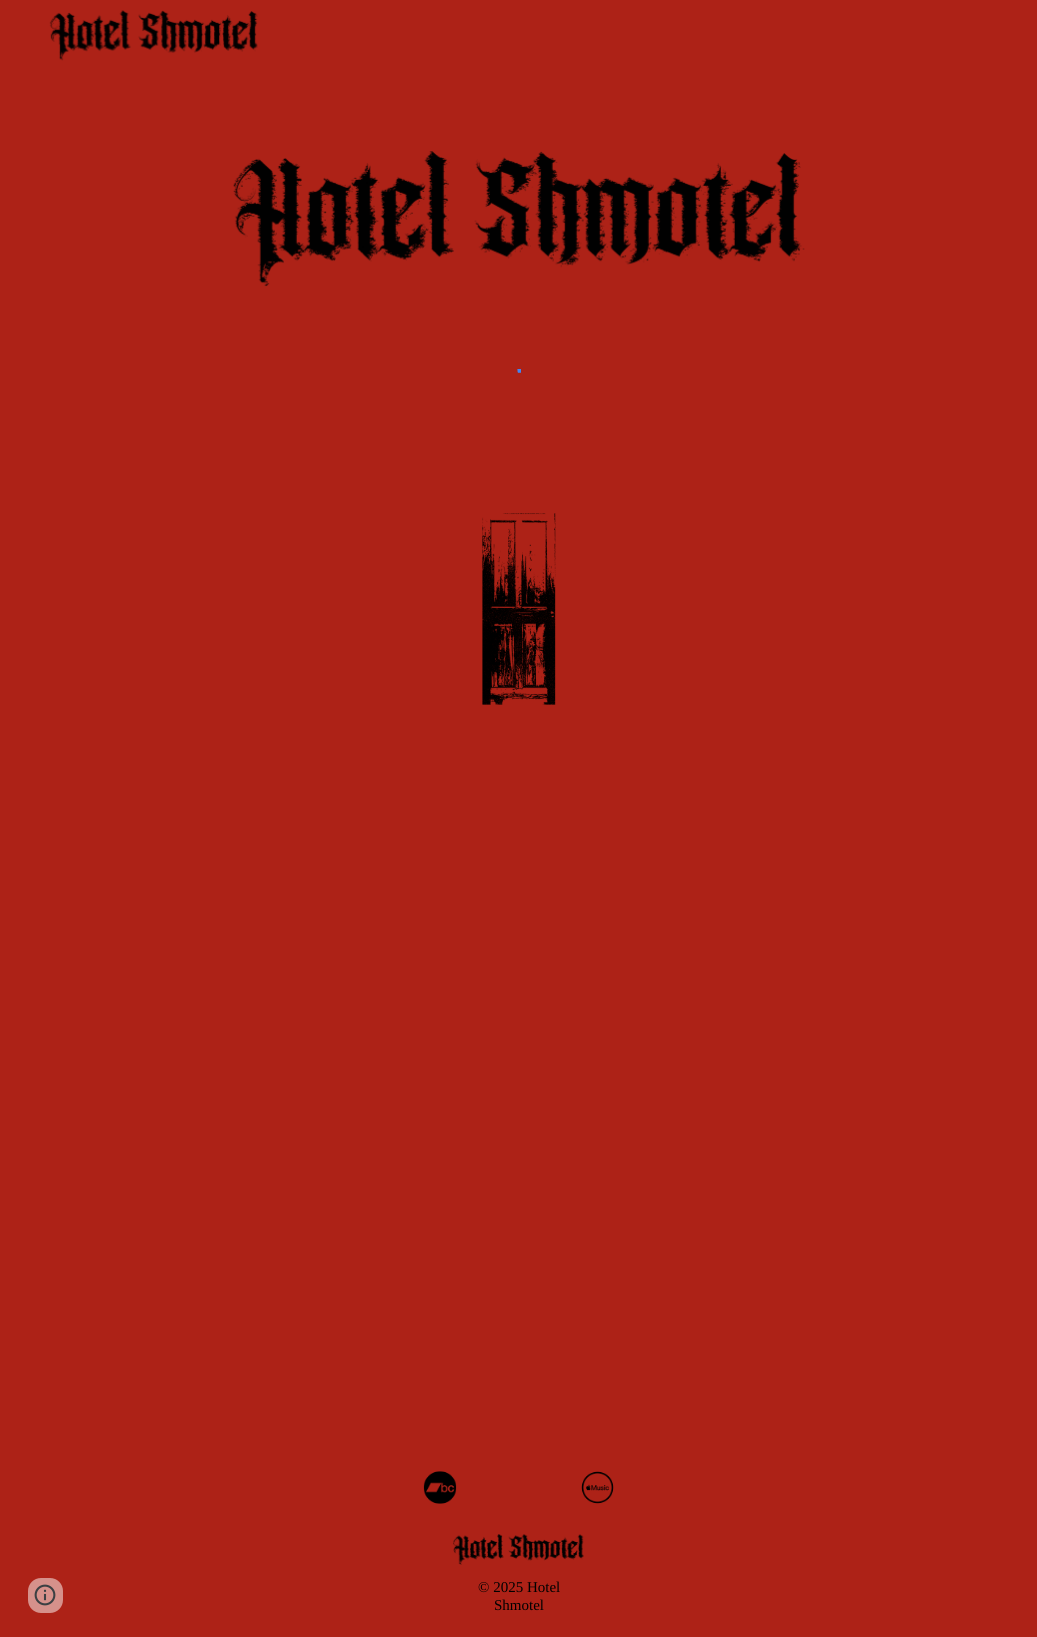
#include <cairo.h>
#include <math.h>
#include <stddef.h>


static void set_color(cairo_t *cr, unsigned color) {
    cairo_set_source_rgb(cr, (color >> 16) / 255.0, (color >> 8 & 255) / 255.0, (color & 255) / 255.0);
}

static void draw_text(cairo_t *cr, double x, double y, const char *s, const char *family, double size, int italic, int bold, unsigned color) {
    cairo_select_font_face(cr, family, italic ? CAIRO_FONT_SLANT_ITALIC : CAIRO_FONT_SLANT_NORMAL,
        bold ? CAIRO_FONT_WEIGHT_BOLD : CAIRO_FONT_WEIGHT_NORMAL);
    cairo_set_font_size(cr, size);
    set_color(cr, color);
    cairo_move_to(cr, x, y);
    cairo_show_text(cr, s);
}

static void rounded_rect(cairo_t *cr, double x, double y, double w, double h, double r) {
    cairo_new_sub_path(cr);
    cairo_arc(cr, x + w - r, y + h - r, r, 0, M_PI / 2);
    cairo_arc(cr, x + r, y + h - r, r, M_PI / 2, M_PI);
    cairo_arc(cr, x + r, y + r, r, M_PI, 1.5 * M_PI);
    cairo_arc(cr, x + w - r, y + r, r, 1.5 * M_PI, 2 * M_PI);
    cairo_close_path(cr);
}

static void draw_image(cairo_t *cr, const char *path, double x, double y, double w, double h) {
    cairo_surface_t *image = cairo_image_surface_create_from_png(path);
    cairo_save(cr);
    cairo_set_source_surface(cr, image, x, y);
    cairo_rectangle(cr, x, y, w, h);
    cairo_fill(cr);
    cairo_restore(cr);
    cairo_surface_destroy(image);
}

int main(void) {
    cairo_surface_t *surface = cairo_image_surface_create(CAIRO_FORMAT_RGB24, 1037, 1637);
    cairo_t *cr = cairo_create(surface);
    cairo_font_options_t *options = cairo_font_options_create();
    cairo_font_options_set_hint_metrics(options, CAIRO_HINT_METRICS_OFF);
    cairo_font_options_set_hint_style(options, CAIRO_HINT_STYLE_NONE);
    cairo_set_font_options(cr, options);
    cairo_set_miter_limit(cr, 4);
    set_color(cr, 0xAD2217);
    cairo_paint(cr);
    draw_image(cr, "assets/img1.png", 49, 10, 209, 51);
    draw_image(cr, "assets/img2.png", 233, 151, 572, 136);
    cairo_save(cr);
    cairo_rectangle(cr, 501, 369, 18, 35);
    cairo_clip(cr);
    cairo_new_path(cr);
    cairo_move_to(cr, 517.5, 370.5);
    cairo_curve_to(cr, 532.5, 369.5, 540.5, 389, 528.5, 398.5);
    cairo_curve_to(cr, 526, 400.5, 523, 401.5, 520, 402);
    set_color(cr, 0x4384F2);
    cairo_set_line_width(cr, 3.7);
    cairo_stroke(cr);
    cairo_restore(cr);
    cairo_save(cr);
    cairo_rectangle(cr, 518, 369, 3, 35);
    cairo_clip(cr);
    cairo_new_path(cr);
    cairo_move_to(cr, 507.5, 397.5);
    cairo_curve_to(cr, 505, 394.5, 503, 390.5, 503, 386);
    cairo_curve_to(cr, 503, 367.5, 530.5, 365, 534, 383);
    cairo_curve_to(cr, 535, 388.5, 533.5, 393.5, 530, 397.5);
    set_color(cr, 0x4384F2);
    cairo_set_line_width(cr, 3.8);
    cairo_stroke(cr);
    cairo_restore(cr);
    cairo_save(cr);
    cairo_rectangle(cr, 519, 369, 17, 35);
    cairo_clip(cr);
    cairo_new_path(cr);
    cairo_move_to(cr, 517.5, 402);
    cairo_curve_to(cr, 514.5, 401.5, 511.5, 400.5, 509, 398.5);
    cairo_curve_to(cr, 497, 389, 505, 369.5, 520, 370.5);
    cairo_move_to(cr, 517.5, 402);
    cairo_curve_to(cr, 514.5, 401.5, 511.5, 400.5, 509, 398.5);
    cairo_curve_to(cr, 497, 389, 505, 369.5, 520, 370.5);
    cairo_move_to(cr, 517.5, 402);
    cairo_curve_to(cr, 514.5, 401.5, 511.5, 400.5, 509, 398.5);
    cairo_curve_to(cr, 497, 389, 505, 369.5, 520, 370.5);
    cairo_move_to(cr, 517.5, 402);
    cairo_curve_to(cr, 514.5, 401.5, 511.5, 400.5, 509, 398.5);
    cairo_curve_to(cr, 497, 389, 505, 369.5, 520, 370.5);
    set_color(cr, 0x4384F2);
    cairo_set_line_width(cr, 3.7);
    cairo_stroke(cr);
    cairo_restore(cr);
    draw_image(cr, "assets/img3.png", 482, 513, 74, 192);
    set_color(cr, 0xD6918B);
    rounded_rect(cr, 28, 1578, 35, 35, 13);
    cairo_fill(cr);
    draw_image(cr, "assets/img4.png", 34, 1584, 22, 22);
    draw_image(cr, "assets/img5.png", 423, 1471, 34, 33);
    draw_image(cr, "assets/img6.png", 581, 1471, 33, 33);
    draw_image(cr, "assets/img7.png", 453, 1534, 131, 31);
    draw_text(cr, 478, 1592, "© 2025 Hotel", "Liberation Serif", 15, 0, 0, 0x000000);
    draw_text(cr, 494, 1610, "Shmotel", "Liberation Serif", 15, 0, 0, 0x000000);
    cairo_surface_write_to_png(surface, "output.png");
    cairo_font_options_destroy(options);
    cairo_destroy(cr);
    cairo_surface_destroy(surface);
    return 0;
}
